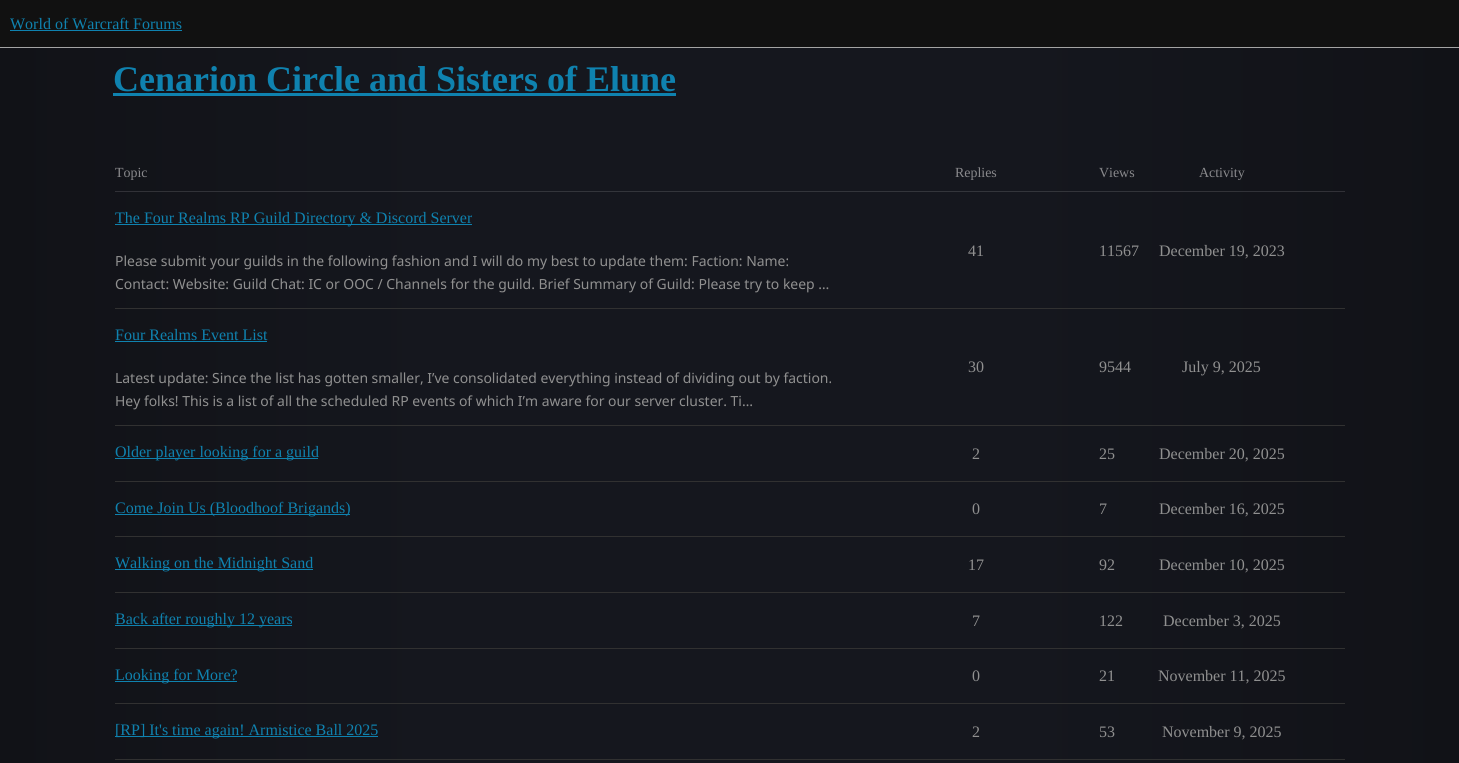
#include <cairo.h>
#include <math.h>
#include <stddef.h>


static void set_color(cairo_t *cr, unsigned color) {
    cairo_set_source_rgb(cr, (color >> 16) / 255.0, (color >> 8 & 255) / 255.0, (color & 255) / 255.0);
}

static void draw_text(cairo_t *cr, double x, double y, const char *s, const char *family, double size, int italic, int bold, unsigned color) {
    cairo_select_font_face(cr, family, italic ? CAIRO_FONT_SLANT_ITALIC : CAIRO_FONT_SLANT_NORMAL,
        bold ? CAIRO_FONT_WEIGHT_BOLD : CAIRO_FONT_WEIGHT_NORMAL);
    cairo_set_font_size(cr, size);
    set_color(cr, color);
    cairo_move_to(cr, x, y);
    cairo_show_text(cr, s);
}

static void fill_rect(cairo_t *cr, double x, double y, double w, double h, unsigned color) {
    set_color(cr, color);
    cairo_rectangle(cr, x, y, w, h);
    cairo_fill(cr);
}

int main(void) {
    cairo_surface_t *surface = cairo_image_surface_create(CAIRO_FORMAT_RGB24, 1459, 763);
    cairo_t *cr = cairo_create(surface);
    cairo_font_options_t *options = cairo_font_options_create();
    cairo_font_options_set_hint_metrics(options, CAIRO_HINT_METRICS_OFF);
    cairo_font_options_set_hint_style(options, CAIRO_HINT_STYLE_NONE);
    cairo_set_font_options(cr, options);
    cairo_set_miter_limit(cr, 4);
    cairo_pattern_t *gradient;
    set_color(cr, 0xFFFFFF);
    cairo_paint(cr);
    gradient = cairo_pattern_create_linear(0, 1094, 1459, 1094);
    cairo_pattern_add_color_stop_rgba(gradient, 0, 0.067, 0.071, 0.09, 1);
    cairo_pattern_add_color_stop_rgba(gradient, 0.3, 0.082, 0.09, 0.118, 1);
    cairo_pattern_add_color_stop_rgba(gradient, 0.7, 0.082, 0.09, 0.118, 1);
    cairo_pattern_add_color_stop_rgba(gradient, 1, 0.067, 0.071, 0.09, 1);
    cairo_set_source(cr, gradient);
    cairo_pattern_destroy(gradient);
    cairo_rectangle(cr, 0, 48, 1459, 715);
    cairo_fill(cr);
    gradient = cairo_pattern_create_linear(0, 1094, 1459, 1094);
    cairo_pattern_add_color_stop_rgba(gradient, 0, 0.188, 0.188, 0.208, 1);
    cairo_pattern_add_color_stop_rgba(gradient, 0.3, 0.2, 0.208, 0.231, 1);
    cairo_pattern_add_color_stop_rgba(gradient, 0.7, 0.2, 0.208, 0.231, 1);
    cairo_pattern_add_color_stop_rgba(gradient, 1, 0.188, 0.188, 0.208, 1);
    cairo_set_source(cr, gradient);
    cairo_pattern_destroy(gradient);
    cairo_rectangle(cr, 115, 191, 1230, 1);
    cairo_fill(cr);
    fill_rect(cr, 0, 0, 1459, 47, 0x111111);
    fill_rect(cr, 0, 47, 1459, 1, 0xA4A4A4);
    draw_text(cr, 10, 29, "World of Warcraft Forums", "Liberation Serif", 16, 0, 0, 0x0F82AF);
    fill_rect(cr, 10, 30, 172, 1, 0x0F82AF);
    draw_text(cr, 113, 91, "Cenarion Circle and Sisters of Elune", "Liberation Serif", 36, 0, 1, 0x0F82AF);
    fill_rect(cr, 113, 93, 563, 3, 0x0F82AF);
    draw_text(cr, 115, 177, "Topic", "Liberation Serif", 13.93, 0, 0, 0x89898C);
    draw_text(cr, 955, 177, "Replies", "Liberation Serif", 13.93, 0, 0, 0x89898C);
    draw_text(cr, 1099, 177, "Views", "Liberation Serif", 13.93, 0, 0, 0x89898C);
    draw_text(cr, 1199, 177, "Activity", "Liberation Serif", 13.93, 0, 0, 0x89898C);
    fill_rect(cr, 115, 308, 1230, 1, 0x313131);
    fill_rect(cr, 115, 224, 357, 1, 0x0F82AF);
    cairo_save(cr);
    cairo_rectangle(cr, 115, 204, 357, 27);
    cairo_clip(cr);
    draw_text(cr, 115, 223, "The Four Realms RP Guild Directory & Discord Server", "Liberation Serif", 16, 0, 0, 0x0F82AF);
    cairo_restore(cr);
    draw_text(cr, 115, 266, "Please submit your guilds in the following fashion and I will do my best to update them: Faction: Name:", "Noto Sans", 13.93, 0, 0, 0x909090);
    draw_text(cr, 115, 289, "Contact: Website: Guild Chat: IC or OOC / Channels for the guild. Brief Summary of Guild: Please try to keep …", "Noto Sans", 13.93, 0, 0, 0x909090);
    draw_text(cr, 968, 256, "41", "Liberation Serif", 16, 0, 0, 0x909090);
    draw_text(cr, 1099, 256, "11567", "Liberation Serif", 16, 0, 0, 0x909090);
    draw_text(cr, 1159, 256, "December 19, 2023", "Liberation Serif", 16, 0, 0, 0x909090);
    fill_rect(cr, 115, 425, 1230, 1, 0x313131);
    draw_text(cr, 115, 340, "Four Realms Event List", "Liberation Serif", 16, 0, 0, 0x0F82AF);
    fill_rect(cr, 115, 341, 152, 1, 0x0F82AF);
    draw_text(cr, 115, 383, "Latest update: Since the list has gotten smaller, I’ve consolidated everything instead of dividing out by faction.", "Noto Sans", 13.93, 0, 0, 0x909090);
    draw_text(cr, 115, 406, "Hey folks! This is a list of all the scheduled RP events of which I’m aware for our server cluster. Ti…", "Noto Sans", 13.93, 0, 0, 0x909090);
    draw_text(cr, 968, 372, "30", "Liberation Serif", 16, 0, 0, 0x909090);
    draw_text(cr, 1099, 372, "9544", "Liberation Serif", 16, 0, 0, 0x909090);
    draw_text(cr, 1182, 372, "July 9, 2025", "Liberation Serif", 16, 0, 0, 0x909090);
    fill_rect(cr, 115, 481, 1230, 1, 0x313131);
    fill_rect(cr, 115, 458, 203, 1, 0x0F82AF);
    draw_text(cr, 115, 457, "Older player looking for a guild", "Liberation Serif", 16, 0, 0, 0x0F82AF);
    draw_text(cr, 972, 459, "2", "Liberation Serif", 16, 0, 0, 0x909090);
    draw_text(cr, 1099, 459, "25", "Liberation Serif", 16, 0, 0, 0x909090);
    draw_text(cr, 1159, 459, "December 20, 2025", "Liberation Serif", 16, 0, 0, 0x909090);
    fill_rect(cr, 115, 536, 1230, 1, 0x313131);
    fill_rect(cr, 115, 514, 235, 1, 0x0F82AF);
    draw_text(cr, 115, 513, "Come Join Us (Bloodhoof Brigands)", "Liberation Serif", 16, 0, 0, 0x0F82AF);
    draw_text(cr, 972, 514, "0", "Liberation Serif", 16, 0, 0, 0x909090);
    draw_text(cr, 1099, 514, "7", "Liberation Serif", 16, 0, 0, 0x909090);
    draw_text(cr, 1159, 514, "December 16, 2025", "Liberation Serif", 16, 0, 0, 0x909090);
    fill_rect(cr, 115, 592, 1230, 1, 0x313131);
    fill_rect(cr, 115, 569, 198, 1, 0x0F82AF);
    draw_text(cr, 115, 568, "Walking on the Midnight Sand", "Liberation Serif", 16, 0, 0, 0x0F82AF);
    draw_text(cr, 968, 570, "17", "Liberation Serif", 16, 0, 0, 0x909090);
    draw_text(cr, 1099, 570, "92", "Liberation Serif", 16, 0, 0, 0x909090);
    draw_text(cr, 1159, 570, "December 10, 2025", "Liberation Serif", 16, 0, 0, 0x909090);
    fill_rect(cr, 115, 648, 1230, 1, 0x313131);
    fill_rect(cr, 115, 625, 177, 1, 0x0F82AF);
    draw_text(cr, 115, 624, "Back after roughly 12 years", "Liberation Serif", 16, 0, 0, 0x0F82AF);
    draw_text(cr, 972, 626, "7", "Liberation Serif", 16, 0, 0, 0x909090);
    draw_text(cr, 1099, 626, "122", "Liberation Serif", 16, 0, 0, 0x909090);
    draw_text(cr, 1163, 626, "December 3, 2025", "Liberation Serif", 16, 0, 0, 0x909090);
    fill_rect(cr, 115, 703, 1230, 1, 0x313131);
    fill_rect(cr, 115, 681, 122, 1, 0x0F82AF);
    draw_text(cr, 115, 680, "Looking for More?", "Liberation Serif", 16, 0, 0, 0x0F82AF);
    draw_text(cr, 972, 681, "0", "Liberation Serif", 16, 0, 0, 0x909090);
    draw_text(cr, 1099, 681, "21", "Liberation Serif", 16, 0, 0, 0x909090);
    draw_text(cr, 1158, 681, "November 11, 2025", "Liberation Serif", 16, 0, 0, 0x909090);
    fill_rect(cr, 115, 759, 1230, 1, 0x313131);
    fill_rect(cr, 115, 736, 263, 1, 0x0F82AF);
    draw_text(cr, 115, 735, "[RP] It's time again! Armistice Ball 2025", "Liberation Serif", 16, 0, 0, 0x0F82AF);
    draw_text(cr, 972, 737, "2", "Liberation Serif", 16, 0, 0, 0x909090);
    draw_text(cr, 1099, 737, "53", "Liberation Serif", 16, 0, 0, 0x909090);
    draw_text(cr, 1162, 737, "November 9, 2025", "Liberation Serif", 16, 0, 0, 0x909090);
    cairo_surface_write_to_png(surface, "output.png");
    cairo_font_options_destroy(options);
    cairo_destroy(cr);
    cairo_surface_destroy(surface);
    return 0;
}
